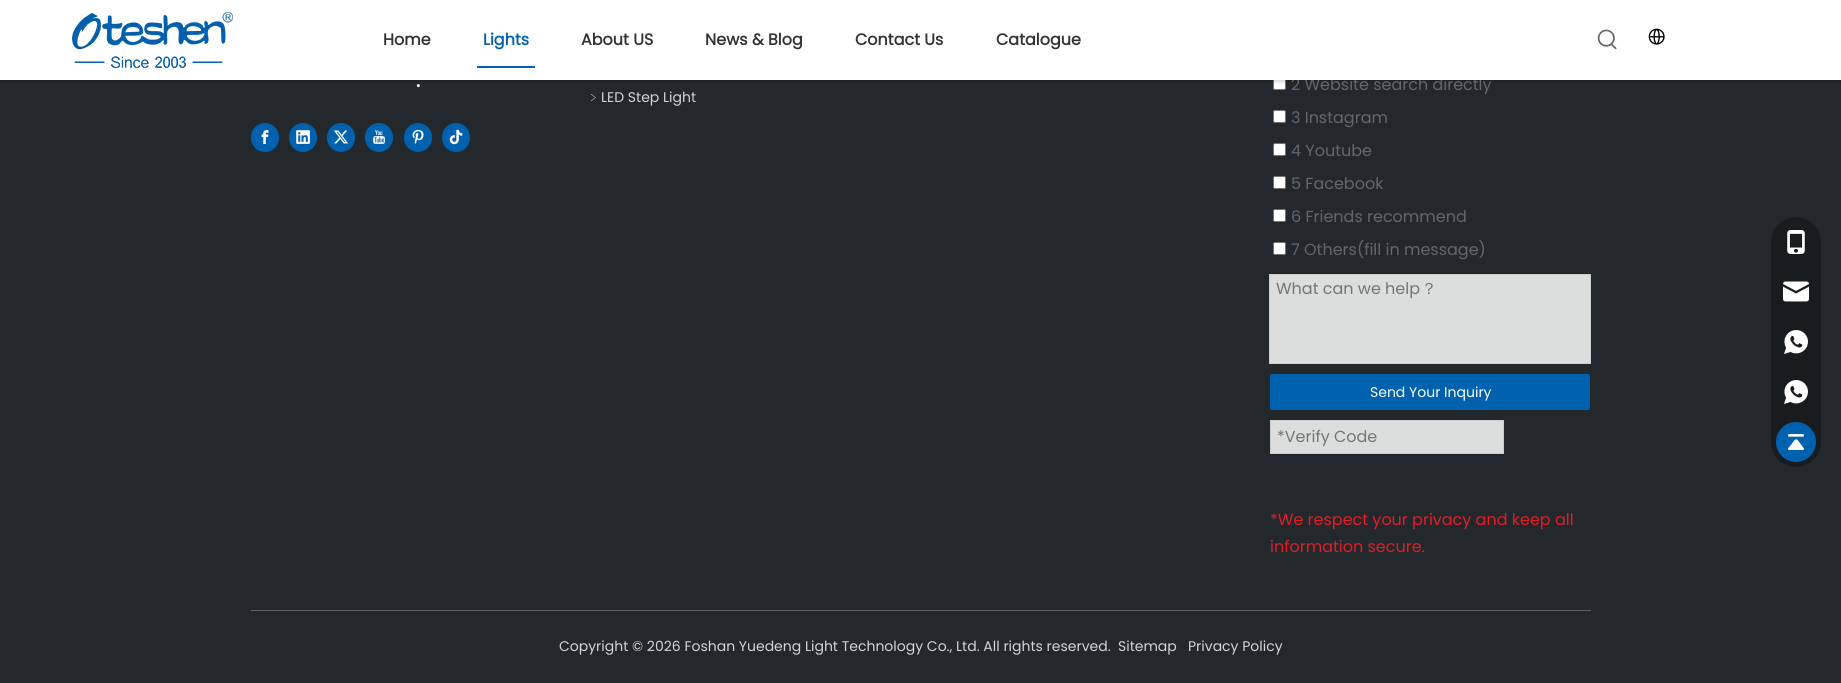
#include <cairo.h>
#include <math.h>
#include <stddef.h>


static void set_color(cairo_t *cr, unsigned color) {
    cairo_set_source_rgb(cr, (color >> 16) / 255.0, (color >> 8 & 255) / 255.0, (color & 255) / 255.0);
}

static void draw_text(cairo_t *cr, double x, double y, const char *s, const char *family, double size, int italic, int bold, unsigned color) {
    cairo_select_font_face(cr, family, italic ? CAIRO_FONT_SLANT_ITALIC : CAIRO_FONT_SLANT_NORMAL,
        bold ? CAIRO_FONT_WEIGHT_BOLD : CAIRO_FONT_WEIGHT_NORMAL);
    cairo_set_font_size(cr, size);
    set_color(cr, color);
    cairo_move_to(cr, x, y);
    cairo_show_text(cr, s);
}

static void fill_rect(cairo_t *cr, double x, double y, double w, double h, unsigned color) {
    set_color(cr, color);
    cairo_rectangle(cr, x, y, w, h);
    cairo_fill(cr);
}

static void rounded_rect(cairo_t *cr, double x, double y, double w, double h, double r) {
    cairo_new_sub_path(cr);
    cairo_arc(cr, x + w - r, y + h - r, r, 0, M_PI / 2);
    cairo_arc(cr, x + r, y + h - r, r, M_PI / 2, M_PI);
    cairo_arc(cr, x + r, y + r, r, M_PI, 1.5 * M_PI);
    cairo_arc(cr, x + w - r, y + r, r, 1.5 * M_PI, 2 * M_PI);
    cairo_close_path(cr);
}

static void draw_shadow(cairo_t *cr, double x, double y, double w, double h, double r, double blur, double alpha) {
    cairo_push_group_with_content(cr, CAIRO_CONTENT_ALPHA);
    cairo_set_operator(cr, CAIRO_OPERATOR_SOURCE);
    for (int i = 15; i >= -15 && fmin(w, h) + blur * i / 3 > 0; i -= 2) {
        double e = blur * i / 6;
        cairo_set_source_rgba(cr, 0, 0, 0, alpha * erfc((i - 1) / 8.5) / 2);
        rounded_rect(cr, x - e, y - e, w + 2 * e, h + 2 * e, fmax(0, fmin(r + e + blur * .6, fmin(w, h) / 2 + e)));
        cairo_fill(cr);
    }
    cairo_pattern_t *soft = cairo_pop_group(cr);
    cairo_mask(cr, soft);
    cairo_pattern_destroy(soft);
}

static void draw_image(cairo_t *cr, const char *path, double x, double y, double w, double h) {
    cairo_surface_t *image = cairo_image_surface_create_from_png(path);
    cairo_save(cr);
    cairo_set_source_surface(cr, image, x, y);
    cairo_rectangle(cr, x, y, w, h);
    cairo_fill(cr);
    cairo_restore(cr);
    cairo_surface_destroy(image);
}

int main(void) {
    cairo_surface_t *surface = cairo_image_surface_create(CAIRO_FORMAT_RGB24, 1841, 683);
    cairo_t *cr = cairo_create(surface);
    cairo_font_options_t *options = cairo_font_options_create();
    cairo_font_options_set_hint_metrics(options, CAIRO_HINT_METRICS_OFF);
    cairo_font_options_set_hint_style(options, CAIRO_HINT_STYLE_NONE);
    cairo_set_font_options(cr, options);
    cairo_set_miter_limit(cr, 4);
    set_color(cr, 0x23282C);
    cairo_paint(cr);
    set_color(cr, 0xFFFFFF);
    rounded_rect(cr, 1273.5, 77.5, 12, 12, 1.5);
    cairo_fill_preserve(cr);
    set_color(cr, 0x767676);
    cairo_set_line_width(cr, 1);
    cairo_stroke(cr);
    set_color(cr, 0x000000);
    draw_shadow(cr, 0, 2, 1841, 80, 0, 1.5, 0.16);
    draw_text(cr, 1291, 90, "2 Website search directly", "Poppins", 16, 0, 0, 0x666666);
    fill_rect(cr, 0, 0, 1841, 80, 0xFFFFFF);
    draw_image(cr, "assets/img1.png", 72, 12, 161, 56);
    draw_text(cr, 383, 45, "Home", "Poppins", 16, 0, 1, 0x333333);
    fill_rect(cr, 477, 66, 58, 2, 0x0061AE);
    draw_text(cr, 483, 45, "Lights", "Poppins", 16, 0, 1, 0x0061AE);
    draw_text(cr, 581, 45, "About US", "Poppins", 16, 0, 1, 0x333333);
    draw_text(cr, 705, 45, "News & Blog", "Poppins", 16, 0, 1, 0x333333);
    draw_text(cr, 855, 45, "Contact Us", "Poppins", 16, 0, 1, 0x333333);
    draw_text(cr, 996, 45, "Catalogue", "Poppins", 16, 0, 1, 0x333333);
    draw_image(cr, "assets/img2.png", 1597, 29, 20, 21);
    draw_image(cr, "assets/img3.png", 1648, 28, 17, 17);
    draw_text(cr, 416, 87, ".", "Poppins", 20, 0, 1, 0xFFFFFF);
    set_color(cr, 0x0061AE);
    rounded_rect(cr, 251, 123, 28, 29, 14);
    cairo_fill(cr);
    draw_image(cr, "assets/img4.png", 261, 130, 8, 14);
    rounded_rect(cr, 289, 123, 28, 29, 14);
    cairo_fill(cr);
    draw_image(cr, "assets/img5.png", 296, 130, 14, 14);
    rounded_rect(cr, 327, 123, 28, 29, 14);
    cairo_fill(cr);
    draw_image(cr, "assets/img6.png", 334, 130, 14, 14);
    rounded_rect(cr, 365, 123, 28, 29, 14);
    cairo_fill(cr);
    draw_image(cr, "assets/img7.png", 373, 130, 12, 14);
    rounded_rect(cr, 404, 123, 28, 29, 14);
    cairo_fill(cr);
    draw_image(cr, "assets/img8.png", 412, 129, 12, 15);
    rounded_rect(cr, 442, 123, 28, 29, 14);
    cairo_fill(cr);
    draw_image(cr, "assets/img9.png", 449, 129, 14, 16);
    set_color(cr, 0x191C1F);
    rounded_rect(cr, 1771, 217, 50, 250, 25);
    cairo_fill(cr);
    draw_image(cr, "assets/img10.png", 1787, 230, 18, 24);
    draw_image(cr, "assets/img11.png", 1783, 281, 26, 21);
    draw_image(cr, "assets/img12.png", 1784, 330, 24, 24);
    draw_image(cr, "assets/img12.png", 1784, 380, 24, 24);
    set_color(cr, 0x0061AE);
    cairo_arc(cr, 1796, 442, 20, 0, 2 * M_PI);
    cairo_fill(cr);
    draw_image(cr, "assets/img13.png", 1788, 434, 16, 16);
    set_color(cr, 0xFFFFFF);
    rounded_rect(cr, 1273.5, 110.5, 12, 12, 1.5);
    cairo_fill_preserve(cr);
    set_color(cr, 0x767676);
    cairo_stroke(cr);
    draw_text(cr, 1291, 123, "3 Instagram", "Poppins", 16, 0, 0, 0x666666);
    set_color(cr, 0xFFFFFF);
    rounded_rect(cr, 1273.5, 143.5, 12, 12, 1.5);
    cairo_fill_preserve(cr);
    set_color(cr, 0x767676);
    cairo_stroke(cr);
    draw_text(cr, 1291, 156, "4 Youtube", "Poppins", 16, 0, 0, 0x666666);
    set_color(cr, 0xFFFFFF);
    rounded_rect(cr, 1273.5, 176.5, 12, 12, 1.5);
    cairo_fill_preserve(cr);
    set_color(cr, 0x767676);
    cairo_stroke(cr);
    draw_text(cr, 1291, 189, "5 Facebook", "Poppins", 16, 0, 0, 0x666666);
    set_color(cr, 0xFFFFFF);
    rounded_rect(cr, 1273.5, 209.5, 12, 12, 1.5);
    cairo_fill_preserve(cr);
    set_color(cr, 0x767676);
    cairo_stroke(cr);
    draw_text(cr, 1291, 222, "6 Friends recommend", "Poppins", 16, 0, 0, 0x666666);
    set_color(cr, 0xFFFFFF);
    rounded_rect(cr, 1273.5, 242.5, 12, 12, 1.5);
    cairo_fill_preserve(cr);
    set_color(cr, 0x767676);
    cairo_stroke(cr);
    draw_text(cr, 1291, 255, "7 Others(fill in message)", "Poppins", 16, 0, 0, 0x666666);
    set_color(cr, 0xDCDDDD);
    cairo_rectangle(cr, 1269.5, 274.5, 321, 89);
    cairo_fill_preserve(cr);
    set_color(cr, 0xCCCCCC);
    cairo_stroke(cr);
    draw_text(cr, 1276, 294, "What can we help", "Poppins", 16, 0, 0, 0x757575);
    draw_text(cr, 1421, 294, "？", "WenQuanYi Zen Hei Medium", 16, 0, 0, 0x757575);
    set_color(cr, 0x0061AE);
    rounded_rect(cr, 1270, 374, 320, 36, 2);
    cairo_fill(cr);
    draw_text(cr, 1370, 397, "Send Your Inquiry", "Poppins", 14, 0, 0, 0xFFFFFF);
    set_color(cr, 0xDCDDDD);
    cairo_rectangle(cr, 1270.5, 420.5, 233, 33);
    cairo_fill_preserve(cr);
    set_color(cr, 0xCCCCCC);
    cairo_stroke(cr);
    draw_text(cr, 1277, 442, "*Verify Code", "Poppins", 16, 0, 0, 0x757575);
    draw_text(cr, 1270, 525, "*We respect your privacy and keep all", "Poppins", 16, 0, 0, 0xE51C23);
    draw_text(cr, 1270, 552, "information secure.", "Poppins", 16, 0, 0, 0xE51C23);
    draw_image(cr, "assets/img14.png", 591, 94, 5, 7);
    draw_text(cr, 601, 102, "LED Step Light", "Poppins", 14, 0, 0, 0xD3D4D5);
    fill_rect(cr, 251, 610, 1340, 1, 0x5C6063);
    draw_text(cr, 559, 651, "Copyright © 2026 Foshan Yuedeng Light Technology Co., Ltd. All rights reserved.", "Poppins", 14, 0, 0, 0xD3D4D5);
    draw_text(cr, 1118, 651, "Sitemap", "Poppins", 14, 0, 0, 0xD3D4D5);
    draw_text(cr, 1188, 651, "Privacy Policy", "Poppins", 14, 0, 0, 0xD3D4D5);
    cairo_surface_write_to_png(surface, "output.png");
    cairo_font_options_destroy(options);
    cairo_destroy(cr);
    cairo_surface_destroy(surface);
    return 0;
}
